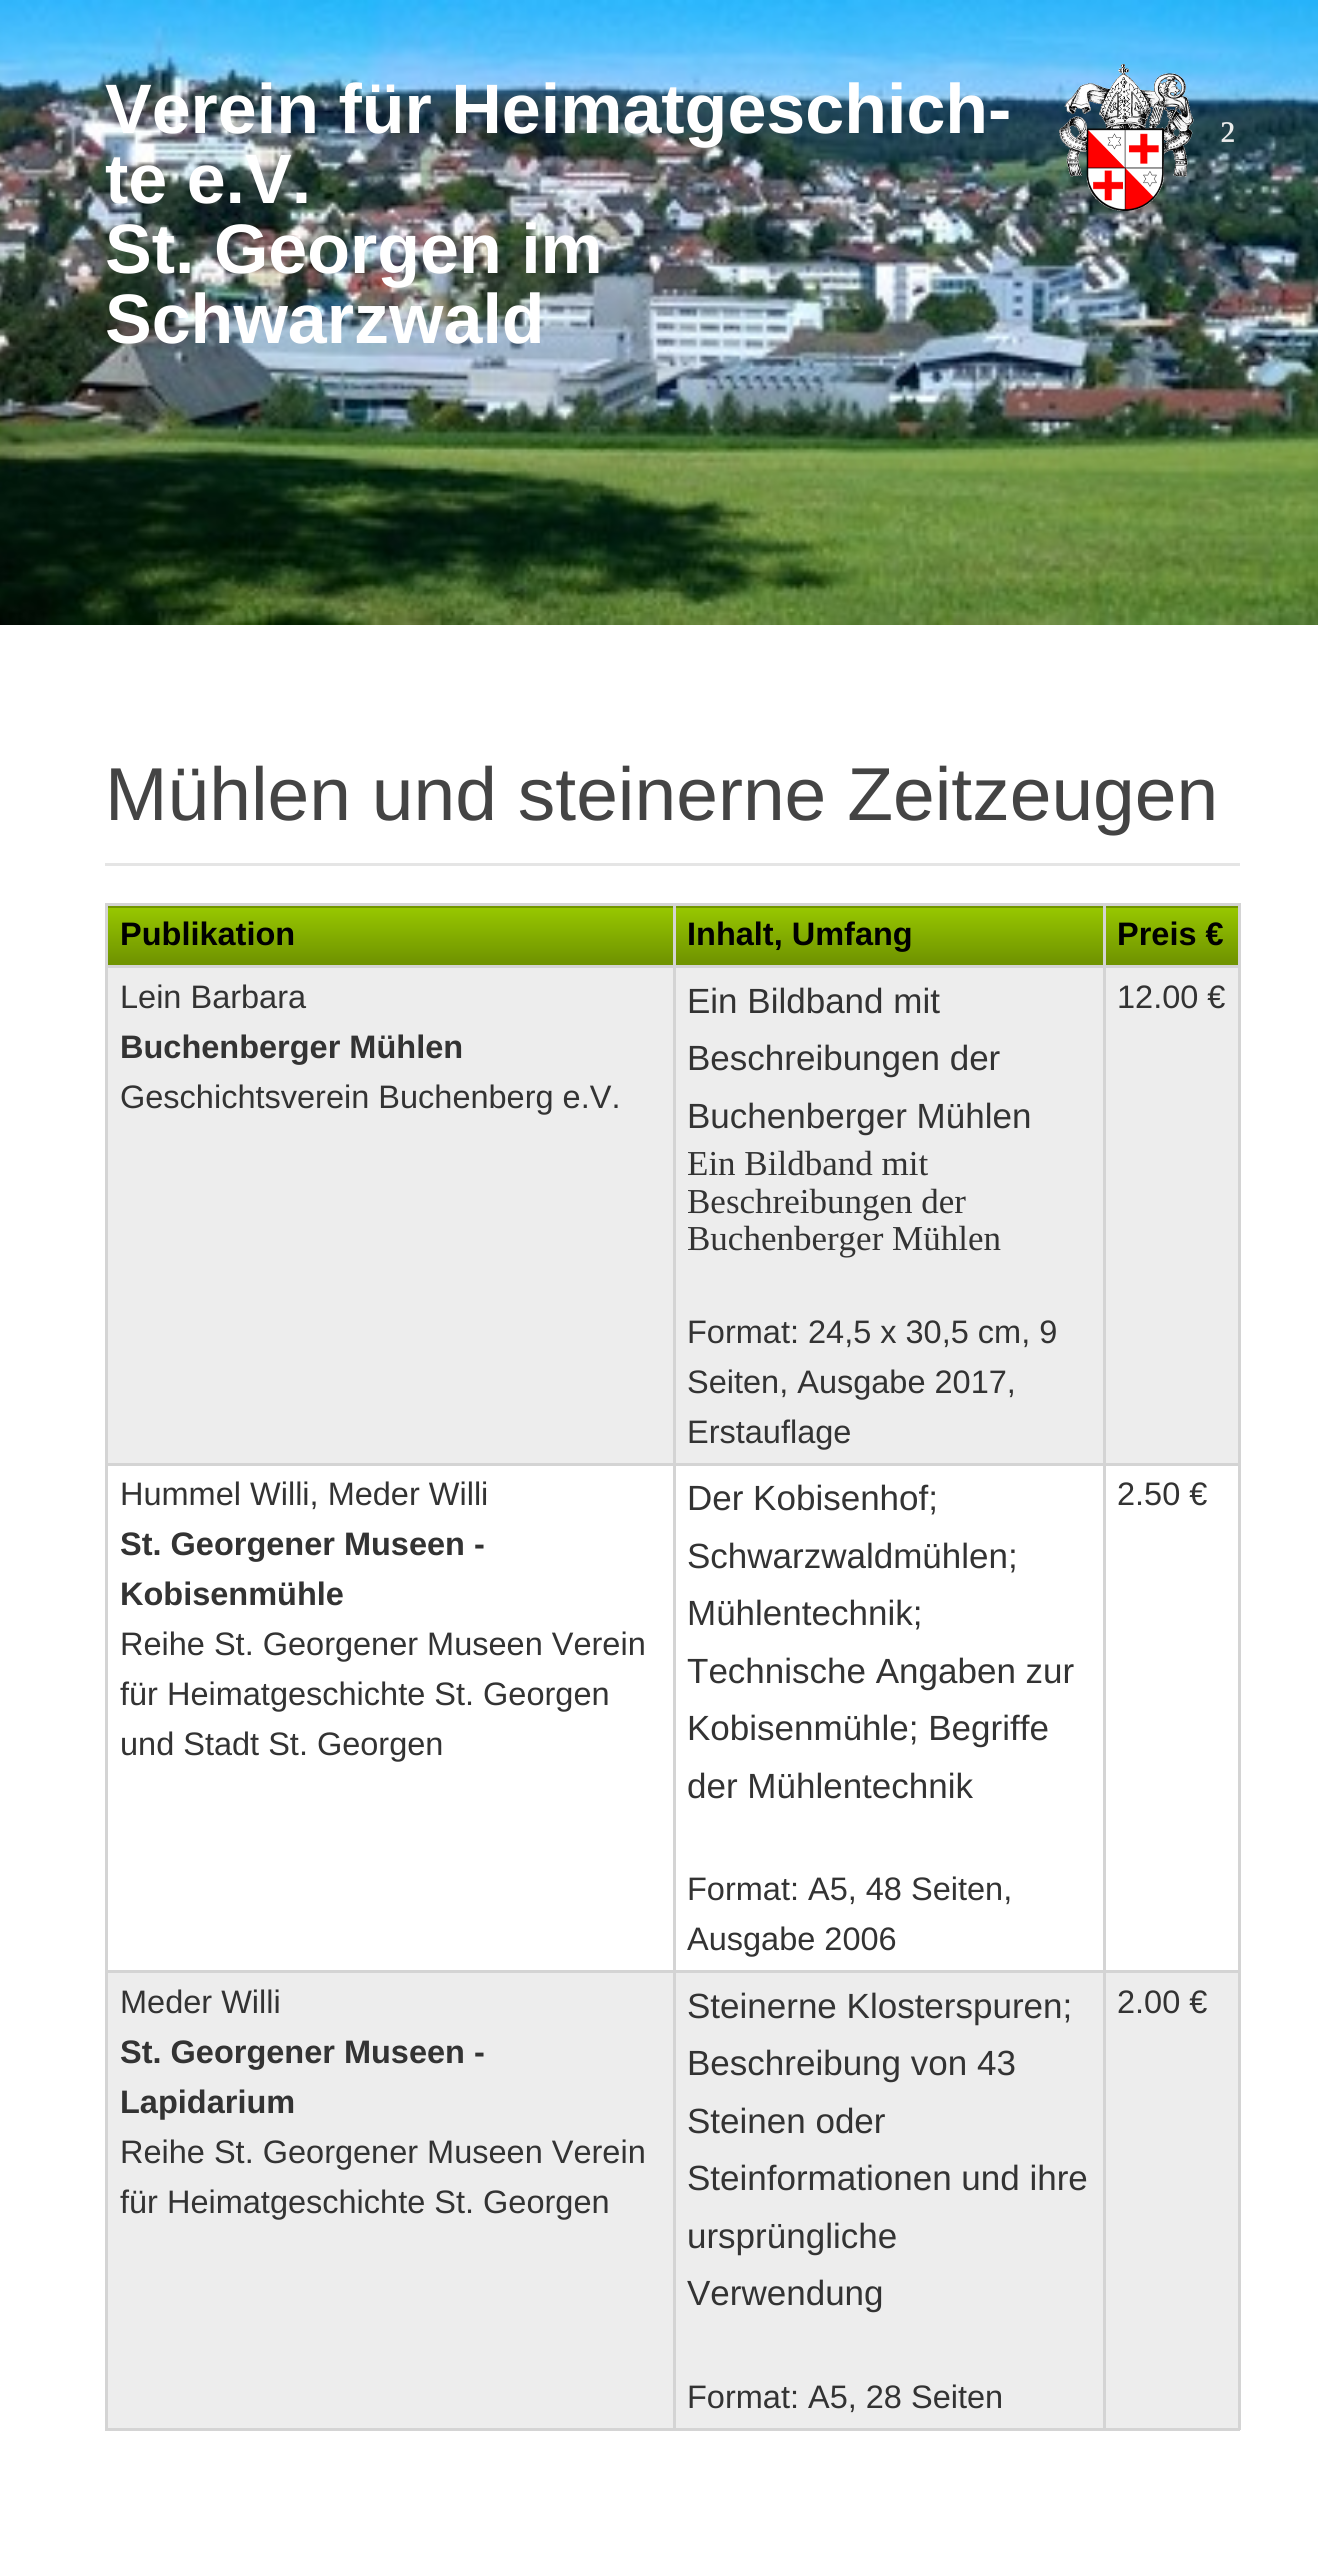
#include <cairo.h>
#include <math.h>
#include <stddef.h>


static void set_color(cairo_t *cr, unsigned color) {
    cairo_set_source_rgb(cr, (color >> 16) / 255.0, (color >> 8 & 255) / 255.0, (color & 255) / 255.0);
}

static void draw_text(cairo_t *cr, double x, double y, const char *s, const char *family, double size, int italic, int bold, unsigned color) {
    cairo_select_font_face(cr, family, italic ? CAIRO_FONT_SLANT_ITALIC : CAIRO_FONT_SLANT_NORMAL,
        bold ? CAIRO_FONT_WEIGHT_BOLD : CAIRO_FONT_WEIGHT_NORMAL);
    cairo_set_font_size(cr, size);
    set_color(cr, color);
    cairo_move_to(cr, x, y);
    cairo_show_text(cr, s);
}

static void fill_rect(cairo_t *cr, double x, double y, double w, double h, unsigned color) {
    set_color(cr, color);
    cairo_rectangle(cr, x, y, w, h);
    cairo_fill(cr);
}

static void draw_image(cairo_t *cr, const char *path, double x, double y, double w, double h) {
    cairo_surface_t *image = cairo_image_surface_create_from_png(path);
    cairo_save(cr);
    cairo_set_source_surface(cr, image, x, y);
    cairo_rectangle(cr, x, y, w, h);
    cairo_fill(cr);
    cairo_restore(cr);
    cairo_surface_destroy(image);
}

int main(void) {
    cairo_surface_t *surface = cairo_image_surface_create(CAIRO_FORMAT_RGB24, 1318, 2561);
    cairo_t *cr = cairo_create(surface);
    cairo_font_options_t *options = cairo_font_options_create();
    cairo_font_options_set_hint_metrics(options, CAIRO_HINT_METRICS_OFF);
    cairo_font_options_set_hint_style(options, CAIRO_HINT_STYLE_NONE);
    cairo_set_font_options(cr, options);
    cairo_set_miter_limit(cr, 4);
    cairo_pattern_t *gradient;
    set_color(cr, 0xFFFFFF);
    cairo_paint(cr);
    draw_image(cr, "assets/img1.png", 0, 0, 1318, 625);
    draw_text(cr, 105, 133, "Verein für Heimatgeschich-", "Liberation Sans", 70, 0, 1, 0xFFFFFF);
    draw_text(cr, 105, 203, "te e.V.", "Liberation Sans", 70, 0, 1, 0xFFFFFF);
    draw_text(cr, 105, 273, "St. Georgen im", "Liberation Sans", 70, 0, 1, 0xFFFFFF);
    draw_text(cr, 105, 343, "Schwarzwald", "Liberation Sans", 70, 0, 1, 0xFFFFFF);
    draw_image(cr, "assets/img2.png", 1059, 64, 135, 147);
    draw_text(cr, 1220, 155, "²", "Liberation Serif", 50, 0, 0, 0xEDEDED);
    fill_rect(cr, 105, 863, 1135, 3, 0xE5E5E5);
    draw_text(cr, 105, 820, "Mühlen und steinerne Zeitzeugen", "Liberation Sans", 75, 0, 0, 0x444444);
    fill_rect(cr, 105, 903, 1135, 3, 0xD4D4D4);
    gradient = cairo_pattern_create_linear(1171, 850, 1171, 908);
    cairo_pattern_add_color_stop_rgba(gradient, 0, 0.592, 0.78, 0, 1);
    cairo_pattern_add_color_stop_rgba(gradient, 0.95, 0.439, 0.58, 0, 1);
    cairo_set_source(cr, gradient);
    cairo_pattern_destroy(gradient);
    cairo_rectangle(cr, 1103, 906, 137, 2);
    cairo_fill(cr);
    fill_rect(cr, 1238, 903, 3, 1527, 0xD4D4D4);
    fill_rect(cr, 105, 2428, 1135, 3, 0xD4D4D4);
    fill_rect(cr, 105, 903, 3, 1527, 0xD4D4D4);
    gradient = cairo_pattern_create_linear(390, 850, 390, 908);
    cairo_pattern_add_color_stop_rgba(gradient, 0, 0.592, 0.78, 0, 1);
    cairo_pattern_add_color_stop_rgba(gradient, 0.95, 0.439, 0.58, 0, 1);
    cairo_set_source(cr, gradient);
    cairo_pattern_destroy(gradient);
    cairo_rectangle(cr, 108, 906, 565, 2);
    cairo_fill(cr);
    gradient = cairo_pattern_create_linear(390, 908, 390, 965);
    cairo_pattern_add_color_stop_rgba(gradient, 0, 0.592, 0.78, 0, 1);
    cairo_pattern_add_color_stop_rgba(gradient, 0.95, 0.439, 0.58, 0, 1);
    cairo_set_source(cr, gradient);
    cairo_pattern_destroy(gradient);
    cairo_rectangle(cr, 108, 908, 565, 57);
    cairo_fill(cr);
    draw_text(cr, 120, 945, "Publikation", "Liberation Sans", 32.5, 0, 1, 0x000000);
    gradient = cairo_pattern_create_linear(888, 850, 888, 908);
    cairo_pattern_add_color_stop_rgba(gradient, 0, 0.592, 0.78, 0, 1);
    cairo_pattern_add_color_stop_rgba(gradient, 0.95, 0.439, 0.58, 0, 1);
    cairo_set_source(cr, gradient);
    cairo_pattern_destroy(gradient);
    cairo_rectangle(cr, 673, 906, 430, 2);
    cairo_fill(cr);
    gradient = cairo_pattern_create_linear(888, 908, 888, 965);
    cairo_pattern_add_color_stop_rgba(gradient, 0, 0.592, 0.78, 0, 1);
    cairo_pattern_add_color_stop_rgba(gradient, 0.95, 0.439, 0.58, 0, 1);
    cairo_set_source(cr, gradient);
    cairo_pattern_destroy(gradient);
    cairo_rectangle(cr, 676, 908, 427, 57);
    cairo_fill(cr);
    fill_rect(cr, 1103, 965, 137, 3, 0xD4D4D4);
    fill_rect(cr, 108, 968, 1130, 495, 0xEDEDED);
    fill_rect(cr, 1103, 1463, 137, 3, 0xD4D4D4);
    fill_rect(cr, 1103, 1970, 137, 3, 0xD4D4D4);
    fill_rect(cr, 108, 1973, 1130, 455, 0xEDEDED);
    fill_rect(cr, 1103, 1970, 3, 460, 0xD4D4D4);
    fill_rect(cr, 673, 1970, 432, 3, 0xD4D4D4);
    fill_rect(cr, 1103, 1463, 3, 510, 0xD4D4D4);
    fill_rect(cr, 673, 1463, 432, 3, 0xD4D4D4);
    fill_rect(cr, 1103, 965, 3, 500, 0xD4D4D4);
    fill_rect(cr, 673, 965, 432, 3, 0xD4D4D4);
    fill_rect(cr, 673, 1970, 3, 460, 0xD4D4D4);
    fill_rect(cr, 105, 1970, 570, 3, 0xD4D4D4);
    fill_rect(cr, 673, 1463, 3, 510, 0xD4D4D4);
    fill_rect(cr, 105, 1463, 570, 3, 0xD4D4D4);
    fill_rect(cr, 673, 965, 3, 500, 0xD4D4D4);
    fill_rect(cr, 105, 965, 570, 3, 0xD4D4D4);
    fill_rect(cr, 673, 903, 3, 65, 0xD4D4D4);
    draw_text(cr, 687, 945, "Inhalt, Umfang", "Liberation Sans", 32.5, 0, 1, 0x000000);
    gradient = cairo_pattern_create_linear(1171, 908, 1171, 965);
    cairo_pattern_add_color_stop_rgba(gradient, 0, 0.592, 0.78, 0, 1);
    cairo_pattern_add_color_stop_rgba(gradient, 0.95, 0.439, 0.58, 0, 1);
    cairo_set_source(cr, gradient);
    cairo_pattern_destroy(gradient);
    cairo_rectangle(cr, 1106, 908, 132, 57);
    cairo_fill(cr);
    fill_rect(cr, 1103, 903, 3, 65, 0xD4D4D4);
    draw_text(cr, 1117, 945, "Preis €", "Liberation Sans", 32.5, 0, 1, 0x000000);
    draw_text(cr, 120, 1008, "Lein Barbara", "Liberation Sans", 32.5, 0, 0, 0x333333);
    draw_text(cr, 120, 1058, "Buchenberger Mühlen", "Liberation Sans", 32.5, 0, 1, 0x333333);
    draw_text(cr, 120, 1108, "Geschichtsverein Buchenberg e.V.", "Liberation Sans", 32.5, 0, 0, 0x333333);
    draw_text(cr, 687, 1013, "Ein Bildband mit", "Liberation Sans", 35, 0, 0, 0x333333);
    draw_text(cr, 687, 1070, "Beschreibungen der", "Liberation Sans", 35, 0, 0, 0x333333);
    draw_text(cr, 687, 1128, "Buchenberger Mühlen", "Liberation Sans", 35, 0, 0, 0x333333);
    draw_text(cr, 687, 1175, "Ein Bildband mit", "Liberation Serif", 35, 0, 0, 0x333333);
    draw_text(cr, 687, 1213, "Beschreibungen der", "Liberation Serif", 35, 0, 0, 0x333333);
    draw_text(cr, 687, 1250, "Buchenberger Mühlen", "Liberation Serif", 35, 0, 0, 0x333333);
    draw_text(cr, 687, 1343, "Format: 24,5 x 30,5 cm, 9", "Liberation Sans", 32.5, 0, 0, 0x333333);
    draw_text(cr, 687, 1393, "Seiten, Ausgabe 2017,", "Liberation Sans", 32.5, 0, 0, 0x333333);
    draw_text(cr, 687, 1443, "Erstauflage", "Liberation Sans", 32.5, 0, 0, 0x333333);
    draw_text(cr, 1117, 1008, "12.00 €", "Liberation Sans", 32.5, 0, 0, 0x333333);
    draw_text(cr, 120, 1505, "Hummel Willi, Meder Willi", "Liberation Sans", 32.5, 0, 0, 0x333333);
    draw_text(cr, 120, 1555, "St. Georgener Museen -", "Liberation Sans", 32.5, 0, 1, 0x333333);
    draw_text(cr, 120, 1605, "Kobisenmühle", "Liberation Sans", 32.5, 0, 1, 0x333333);
    draw_text(cr, 120, 1655, "Reihe St. Georgener Museen Verein", "Liberation Sans", 32.5, 0, 0, 0x333333);
    draw_text(cr, 120, 1705, "für Heimatgeschichte St. Georgen", "Liberation Sans", 32.5, 0, 0, 0x333333);
    draw_text(cr, 120, 1755, "und Stadt St. Georgen", "Liberation Sans", 32.5, 0, 0, 0x333333);
    draw_text(cr, 687, 1510, "Der Kobisenhof;", "Liberation Sans", 35, 0, 0, 0x333333);
    draw_text(cr, 687, 1568, "Schwarzwaldmühlen;", "Liberation Sans", 35, 0, 0, 0x333333);
    draw_text(cr, 687, 1625, "Mühlentechnik;", "Liberation Sans", 35, 0, 0, 0x333333);
    draw_text(cr, 687, 1683, "Technische Angaben zur", "Liberation Sans", 35, 0, 0, 0x333333);
    draw_text(cr, 687, 1740, "Kobisenmühle; Begriffe", "Liberation Sans", 35, 0, 0, 0x333333);
    draw_text(cr, 687, 1798, "der Mühlentechnik", "Liberation Sans", 35, 0, 0, 0x333333);
    draw_text(cr, 687, 1900, "Format: A5, 48 Seiten,", "Liberation Sans", 32.5, 0, 0, 0x333333);
    draw_text(cr, 687, 1950, "Ausgabe 2006", "Liberation Sans", 32.5, 0, 0, 0x333333);
    draw_text(cr, 1117, 1505, "2.50 €", "Liberation Sans", 32.5, 0, 0, 0x333333);
    draw_text(cr, 120, 2013, "Meder Willi", "Liberation Sans", 32.5, 0, 0, 0x333333);
    draw_text(cr, 120, 2063, "St. Georgener Museen -", "Liberation Sans", 32.5, 0, 1, 0x333333);
    draw_text(cr, 120, 2113, "Lapidarium", "Liberation Sans", 32.5, 0, 1, 0x333333);
    draw_text(cr, 120, 2163, "Reihe St. Georgener Museen Verein", "Liberation Sans", 32.5, 0, 0, 0x333333);
    draw_text(cr, 120, 2213, "für Heimatgeschichte St. Georgen", "Liberation Sans", 32.5, 0, 0, 0x333333);
    draw_text(cr, 687, 2018, "Steinerne Klosterspuren;", "Liberation Sans", 35, 0, 0, 0x333333);
    draw_text(cr, 687, 2075, "Beschreibung von 43", "Liberation Sans", 35, 0, 0, 0x333333);
    draw_text(cr, 687, 2133, "Steinen oder", "Liberation Sans", 35, 0, 0, 0x333333);
    draw_text(cr, 687, 2190, "Steinformationen und ihre", "Liberation Sans", 35, 0, 0, 0x333333);
    draw_text(cr, 687, 2248, "ursprüngliche", "Liberation Sans", 35, 0, 0, 0x333333);
    draw_text(cr, 687, 2305, "Verwendung", "Liberation Sans", 35, 0, 0, 0x333333);
    draw_text(cr, 687, 2408, "Format: A5, 28 Seiten", "Liberation Sans", 32.5, 0, 0, 0x333333);
    draw_text(cr, 1117, 2013, "2.00 €", "Liberation Sans", 32.5, 0, 0, 0x333333);
    cairo_surface_write_to_png(surface, "output.png");
    cairo_font_options_destroy(options);
    cairo_destroy(cr);
    cairo_surface_destroy(surface);
    return 0;
}
